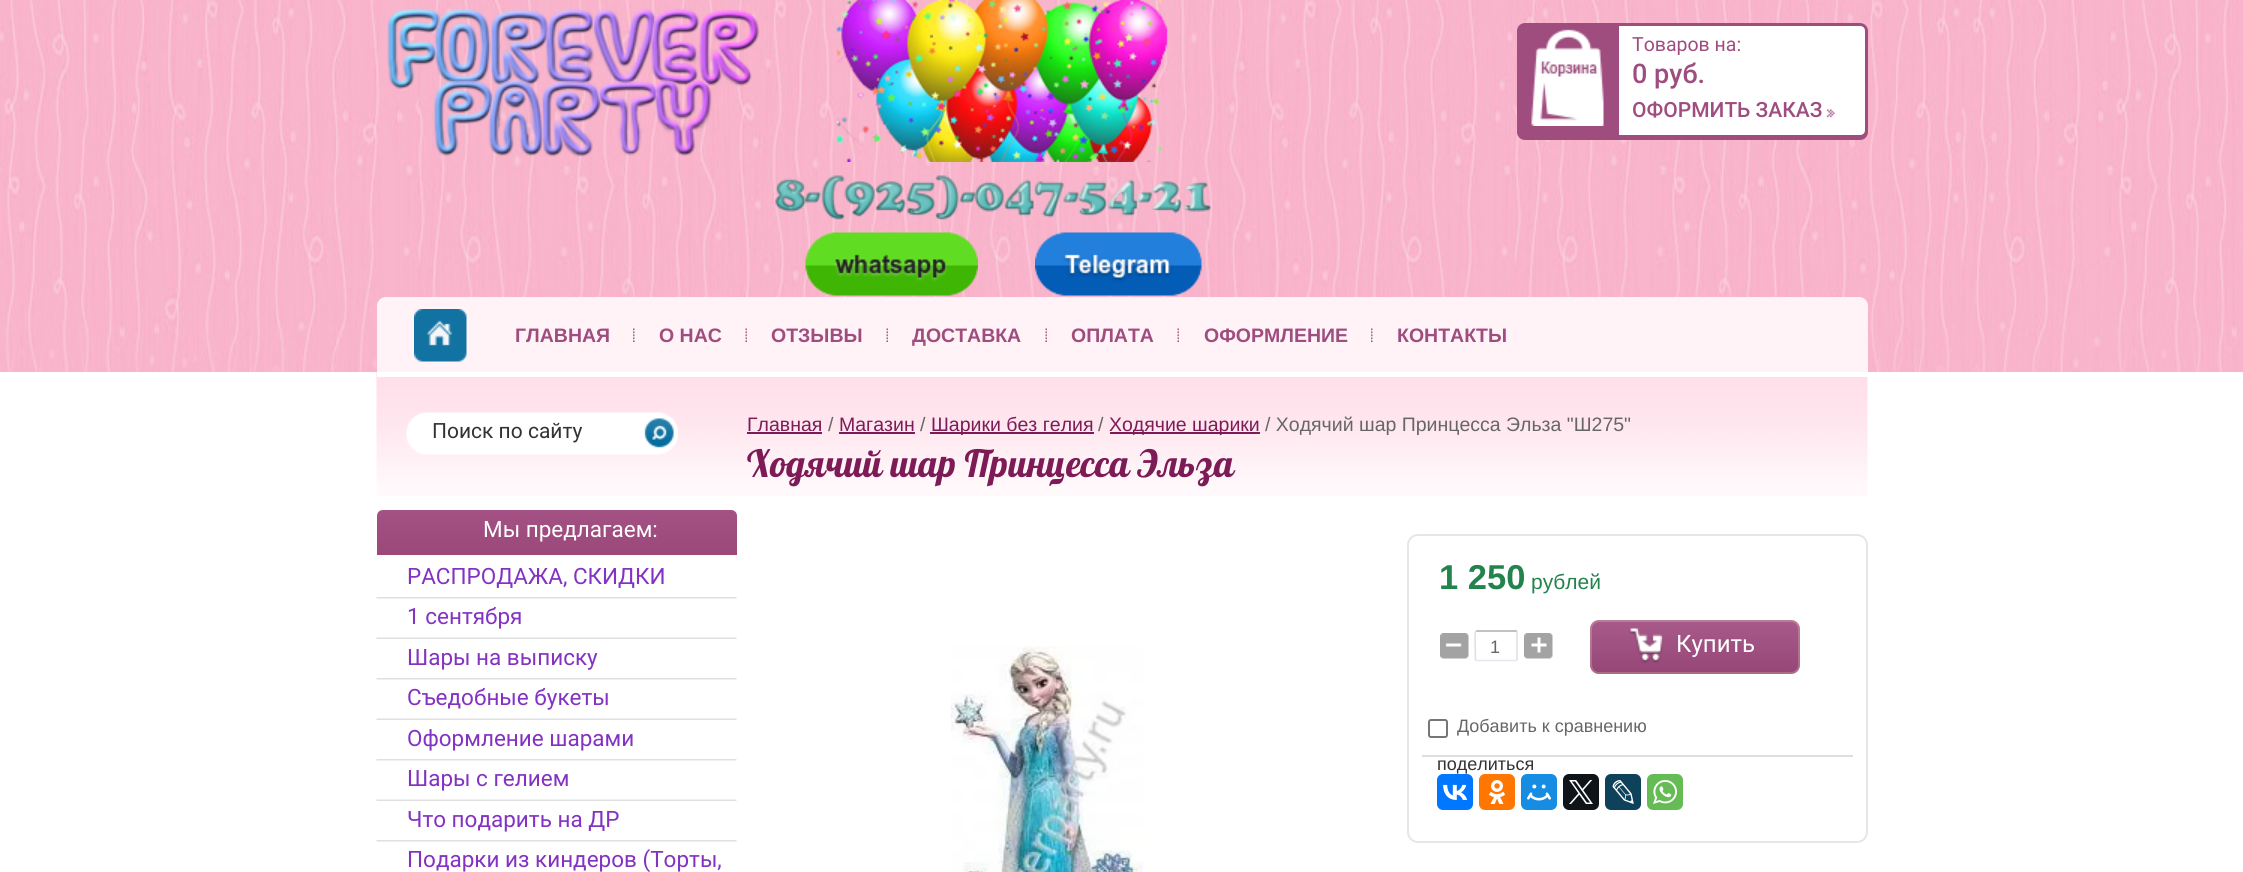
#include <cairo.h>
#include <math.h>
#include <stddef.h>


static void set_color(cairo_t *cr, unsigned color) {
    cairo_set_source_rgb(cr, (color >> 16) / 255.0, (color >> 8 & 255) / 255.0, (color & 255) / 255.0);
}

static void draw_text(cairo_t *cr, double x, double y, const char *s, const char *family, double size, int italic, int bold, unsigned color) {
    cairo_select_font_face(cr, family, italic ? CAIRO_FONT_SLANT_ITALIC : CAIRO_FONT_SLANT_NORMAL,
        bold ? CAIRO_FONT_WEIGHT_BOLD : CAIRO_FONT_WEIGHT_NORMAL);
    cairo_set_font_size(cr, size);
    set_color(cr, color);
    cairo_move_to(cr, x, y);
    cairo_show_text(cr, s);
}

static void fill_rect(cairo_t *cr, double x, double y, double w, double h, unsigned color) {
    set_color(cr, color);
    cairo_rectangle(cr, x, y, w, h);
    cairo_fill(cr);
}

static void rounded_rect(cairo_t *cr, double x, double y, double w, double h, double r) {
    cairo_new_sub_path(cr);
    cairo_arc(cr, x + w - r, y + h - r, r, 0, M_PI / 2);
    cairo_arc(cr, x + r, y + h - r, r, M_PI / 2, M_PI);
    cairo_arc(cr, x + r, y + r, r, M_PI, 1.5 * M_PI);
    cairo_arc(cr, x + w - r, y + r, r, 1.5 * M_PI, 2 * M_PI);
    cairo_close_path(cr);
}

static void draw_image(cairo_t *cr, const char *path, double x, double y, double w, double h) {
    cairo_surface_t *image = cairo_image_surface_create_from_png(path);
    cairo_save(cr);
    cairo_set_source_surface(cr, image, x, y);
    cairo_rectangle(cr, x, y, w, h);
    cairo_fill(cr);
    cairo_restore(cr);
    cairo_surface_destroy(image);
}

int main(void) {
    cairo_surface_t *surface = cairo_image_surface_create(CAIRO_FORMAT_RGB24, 2243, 872);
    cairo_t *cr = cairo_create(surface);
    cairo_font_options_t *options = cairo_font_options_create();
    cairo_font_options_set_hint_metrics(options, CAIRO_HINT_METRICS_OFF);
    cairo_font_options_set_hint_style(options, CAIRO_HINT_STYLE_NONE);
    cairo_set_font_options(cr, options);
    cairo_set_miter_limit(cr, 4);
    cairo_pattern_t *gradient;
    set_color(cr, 0xFFFFFF);
    cairo_paint(cr);
    draw_image(cr, "assets/img1.png", 0, 0, 2243, 372);
    draw_image(cr, "assets/img2.png", 387, 8, 373, 149);
    draw_image(cr, "assets/img3.png", 836, 0, 332, 162);
    draw_image(cr, "assets/img4.png", 775, 175, 436, 45);
    draw_image(cr, "assets/img5.png", 805, 232, 173, 64);
    draw_image(cr, "assets/img6.png", 1035, 232, 167, 64);
    set_color(cr, 0x9F4D7F);
    rounded_rect(cr, 1517, 23, 351, 117, 8);
    cairo_fill(cr);
    draw_image(cr, "assets/img7.png", 1531, 29, 73, 97);
    set_color(cr, 0xFFFFFF);
    cairo_new_path(cr);
    cairo_move_to(cr, 1619, 26);
    cairo_line_to(cr, 1860, 26);
    cairo_curve_to(cr, 1863, 26, 1865, 28, 1865, 31);
    cairo_line_to(cr, 1865, 130);
    cairo_curve_to(cr, 1865, 133, 1863, 135, 1860, 135);
    cairo_line_to(cr, 1619, 135);
    cairo_close_path(cr);
    cairo_fill(cr);
    draw_text(cr, 1632, 51, "Товаров на:", "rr", 19.5, 0, 0, 0x9F4D7F);
    draw_text(cr, 1632, 83, "0 руб.", "Roboto Medium", 27, 0, 0, 0x9F4D7F);
    draw_text(cr, 1632, 117, "ОФОРМИТЬ ЗАКАЗ", "Roboto Medium", 21, 0, 0, 0x9F4D7F);
    draw_image(cr, "assets/img8.png", 1826, 109, 9, 9);
    draw_image(cr, "assets/img12.png", 376, 372, 1492, 124);
    set_color(cr, 0xFFFFFF);
    cairo_new_path(cr);
    cairo_move_to(cr, 377, 372);
    cairo_line_to(cr, 377, 377);
    cairo_line_to(cr, 1868, 377);
    cairo_line_to(cr, 1868, 311);
    cairo_line_to(cr, 1868, 308);
    cairo_line_to(cr, 1868, 372);
    cairo_close_path(cr);
    cairo_fill(cr);
    set_color(cr, 0xFFF3F7);
    cairo_new_path(cr);
    cairo_move_to(cr, 386, 297);
    cairo_line_to(cr, 1859, 297);
    cairo_curve_to(cr, 1864, 297, 1868, 301, 1868, 306);
    cairo_line_to(cr, 1868, 372);
    cairo_line_to(cr, 377, 372);
    cairo_line_to(cr, 377, 306);
    cairo_curve_to(cr, 377, 301, 381, 297, 386, 297);
    cairo_close_path(cr);
    cairo_fill(cr);
    draw_image(cr, "assets/img9.png", 414, 309, 53, 53);
    draw_text(cr, 515, 342, "ГЛАВНАЯ", "Liberation Sans", 19.5, 0, 1, 0x9F4D7F);
    draw_image(cr, "assets/img10.png", 633, 328, 2, 14);
    draw_text(cr, 659, 342, "О НАС", "Liberation Sans", 19.5, 0, 1, 0x9F4D7F);
    draw_image(cr, "assets/img11.png", 745, 328, 2, 14);
    draw_text(cr, 771, 342, "ОТЗЫВЫ", "Liberation Sans", 19.5, 0, 1, 0x9F4D7F);
    draw_image(cr, "assets/img11.png", 886, 328, 2, 14);
    draw_text(cr, 912, 342, "ДОСТАВКА", "Liberation Sans", 19.5, 0, 1, 0x9F4D7F);
    draw_image(cr, "assets/img11.png", 1045, 328, 2, 14);
    draw_text(cr, 1071, 342, "ОПЛАТА", "Liberation Sans", 19.5, 0, 1, 0x9F4D7F);
    draw_image(cr, "assets/img11.png", 1177, 328, 2, 14);
    draw_text(cr, 1204, 342, "ОФОРМЛЕНИЕ", "Liberation Sans", 19.5, 0, 1, 0x9F4D7F);
    draw_image(cr, "assets/img10.png", 1371, 328, 2, 14);
    draw_text(cr, 1397, 342, "КОНТАКТЫ", "Liberation Sans", 19.5, 0, 1, 0x9F4D7F);
    draw_image(cr, "assets/img13.png", 406, 412, 272, 43);
    draw_text(cr, 432, 438, "Поиск по сайту", "rr", 21, 0, 0, 0x333333);
    gradient = cairo_pattern_create_linear(557, 510, 557, 555);
    cairo_pattern_add_color_stop_rgba(gradient, 0, 0.643, 0.318, 0.522, 1);
    cairo_pattern_add_color_stop_rgba(gradient, 1, 0.604, 0.286, 0.475, 1);
    cairo_set_source(cr, gradient);
    cairo_pattern_destroy(gradient);
    cairo_new_path(cr);
    cairo_move_to(cr, 383, 510);
    cairo_line_to(cr, 731, 510);
    cairo_curve_to(cr, 734.5, 510, 737, 512.5, 737, 516);
    cairo_line_to(cr, 737, 555);
    cairo_line_to(cr, 377, 555);
    cairo_line_to(cr, 377, 516);
    cairo_curve_to(cr, 377, 512.5, 379.5, 510, 383, 510);
    cairo_close_path(cr);
    cairo_fill(cr);
    draw_text(cr, 483, 537, "Мы предлагаем:", "rr", 22.5, 0, 0, 0xFFFFFF);
    draw_text(cr, 407, 584, "РАСПРОДАЖА, СКИДКИ", "rr", 22.5, 0, 0, 0x8332C1);
    draw_image(cr, "assets/img14.png", 376, 597, 361, 2);
    draw_text(cr, 407, 624, "1 сентября", "rr", 22.5, 0, 0, 0x8332C1);
    draw_image(cr, "assets/img15.png", 376, 637, 361, 2);
    draw_text(cr, 407, 665, "Шары на выписку", "rr", 22.5, 0, 0, 0x8332C1);
    draw_image(cr, "assets/img14.png", 376, 678, 361, 2);
    draw_text(cr, 407, 705, "Съедобные букеты", "rr", 22.5, 0, 0, 0x8332C1);
    draw_image(cr, "assets/img16.png", 376, 718, 361, 2);
    draw_text(cr, 407, 746, "Оформление шарами", "rr", 22.5, 0, 0, 0x8332C1);
    draw_image(cr, "assets/img14.png", 376, 759, 361, 2);
    draw_text(cr, 407, 786, "Шары с гелием", "rr", 22.5, 0, 0, 0x8332C1);
    draw_image(cr, "assets/img17.png", 376, 799, 361, 2);
    draw_text(cr, 407, 827, "Что подарить на ДР", "rr", 22.5, 0, 0, 0x8332C1);
    draw_image(cr, "assets/img14.png", 376, 840, 361, 2);
    draw_text(cr, 407, 867, "Подарки из киндеров (Торты,", "rr", 22.5, 0, 0, 0x8332C1);
    draw_text(cr, 747, 431, "Главная", "Liberation Sans", 19.5, 0, 0, 0x7D1B57);
    fill_rect(cr, 747, 432, 75, 2, 0x7D1B57);
    draw_text(cr, 828, 431, "/", "Liberation Sans", 19.5, 0, 0, 0x666666);
    draw_text(cr, 839, 431, "Магазин", "Liberation Sans", 19.5, 0, 0, 0x7D1B57);
    fill_rect(cr, 839, 432, 76, 2, 0x7D1B57);
    draw_text(cr, 920, 431, "/", "Liberation Sans", 19.5, 0, 0, 0x666666);
    fill_rect(cr, 930, 432, 164, 2, 0x7D1B57);
    draw_text(cr, 931, 431, "Шарики без гелия", "Liberation Sans", 19.5, 0, 0, 0x7D1B57);
    draw_text(cr, 1098, 431, "/", "Liberation Sans", 19.5, 0, 0, 0x666666);
    fill_rect(cr, 1110, 432, 150, 2, 0x7D1B57);
    draw_text(cr, 1109, 431, "Ходячие шарики", "Liberation Sans", 19.5, 0, 0, 0x7D1B57);
    draw_text(cr, 1265, 431, "/ Ходячий шар Принцесса Эльза \"Ш275\"", "Liberation Sans", 19.5, 0, 0, 0x666666);
    draw_text(cr, 747, 477, "Ходячий шар Принцесса Эльза", "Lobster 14", 37.5, 0, 0, 0x7D1B57);
    draw_image(cr, "assets/img18.png", 951, 646, 192, 226);
    rounded_rect(cr, 1408, 535, 459, 307, 10);
    set_color(cr, 0xE6E6E6);
    cairo_stroke(cr);
    draw_text(cr, 1439, 589, "1 250", "Liberation Sans", 34.5, 0, 1, 0x22834C);
    draw_text(cr, 1531, 589, "рублей", "Liberation Sans", 21, 0, 0, 0x22834C);
    draw_image(cr, "assets/img19.png", 1440, 633, 29, 26);
    fill_rect(cr, 1476, 630, 41, 2, 0xC0C2C6);
    cairo_new_path(cr);
    cairo_move_to(cr, 1517, 631);
    cairo_line_to(cr, 1517, 636);
    cairo_line_to(cr, 1517, 660.5);
    set_color(cr, 0xDBDFE6);
    cairo_set_line_width(cr, 1.5);
    cairo_stroke(cr);
    cairo_new_path(cr);
    cairo_move_to(cr, 1517, 660.5);
    cairo_line_to(cr, 1475.5, 660.5);
    set_color(cr, 0xE3E9EF);
    cairo_stroke(cr);
    cairo_new_path(cr);
    cairo_move_to(cr, 1475.5, 660.5);
    cairo_line_to(cr, 1475, 636);
    cairo_line_to(cr, 1475.5, 631);
    set_color(cr, 0xDBDFE6);
    cairo_stroke(cr);
    draw_text(cr, 1490, 653, "1", "Liberation Sans", 18, 0, 0, 0x666666);
    draw_image(cr, "assets/img20.png", 1524, 633, 29, 26);
    gradient = cairo_pattern_create_linear(1695, 620, 1695, 674);
    cairo_pattern_add_color_stop_rgba(gradient, 0, 0.659, 0.357, 0.545, 1);
    cairo_pattern_add_color_stop_rgba(gradient, 1, 0.584, 0.275, 0.463, 1);
    cairo_set_source(cr, gradient);
    cairo_pattern_destroy(gradient);
    rounded_rect(cr, 1590, 620, 210, 54, 9);
    cairo_fill(cr);
    rounded_rect(cr, 1591, 621, 208, 52, 8);
    cairo_set_source_rgba(cr, 1, 1, 0.745, 0.21);
    cairo_set_line_width(cr, 2);
    cairo_stroke(cr);
    draw_image(cr, "assets/img21.png", 1629, 628, 35, 35);
    draw_text(cr, 1676, 652, "Купить", "rr", 24, 0, 0, 0xFFFFFF);
    fill_rect(cr, 1422, 755, 431, 2, 0xDEDEDE);
    rounded_rect(cr, 1429, 720, 18, 17, 2);
    set_color(cr, 0x767676);
    cairo_stroke(cr);
    draw_text(cr, 1457, 732, "Добавить к сравнению", "Liberation Sans", 18, 0, 0, 0x666666);
    draw_text(cr, 1437, 770, "поделиться", "Liberation Sans", 18, 0, 0, 0x333333);
    set_color(cr, 0x0077FF);
    rounded_rect(cr, 1437, 774, 36, 36, 6);
    cairo_fill(cr);
    draw_image(cr, "assets/img22.png", 1443, 784, 24, 16);
    set_color(cr, 0xFF7700);
    rounded_rect(cr, 1479, 774, 36, 36, 6);
    cairo_fill(cr);
    draw_image(cr, "assets/img23.png", 1489, 780, 17, 24);
    set_color(cr, 0x168DE2);
    rounded_rect(cr, 1521, 774, 36, 36, 6);
    cairo_fill(cr);
    draw_image(cr, "assets/img24.png", 1527, 784, 24, 17);
    set_color(cr, 0x0F1419);
    rounded_rect(cr, 1563, 774, 36, 36, 6);
    cairo_fill(cr);
    draw_image(cr, "assets/img25.png", 1569, 780, 24, 24);
    set_color(cr, 0x0D425A);
    rounded_rect(cr, 1605, 774, 36, 36, 6);
    cairo_fill(cr);
    draw_image(cr, "assets/img26.png", 1612, 780, 22, 24);
    set_color(cr, 0x65BC54);
    rounded_rect(cr, 1647, 774, 36, 36, 6);
    cairo_fill(cr);
    draw_image(cr, "assets/img27.png", 1653, 780, 24, 24);
    cairo_surface_write_to_png(surface, "output.png");
    cairo_font_options_destroy(options);
    cairo_destroy(cr);
    cairo_surface_destroy(surface);
    return 0;
}
